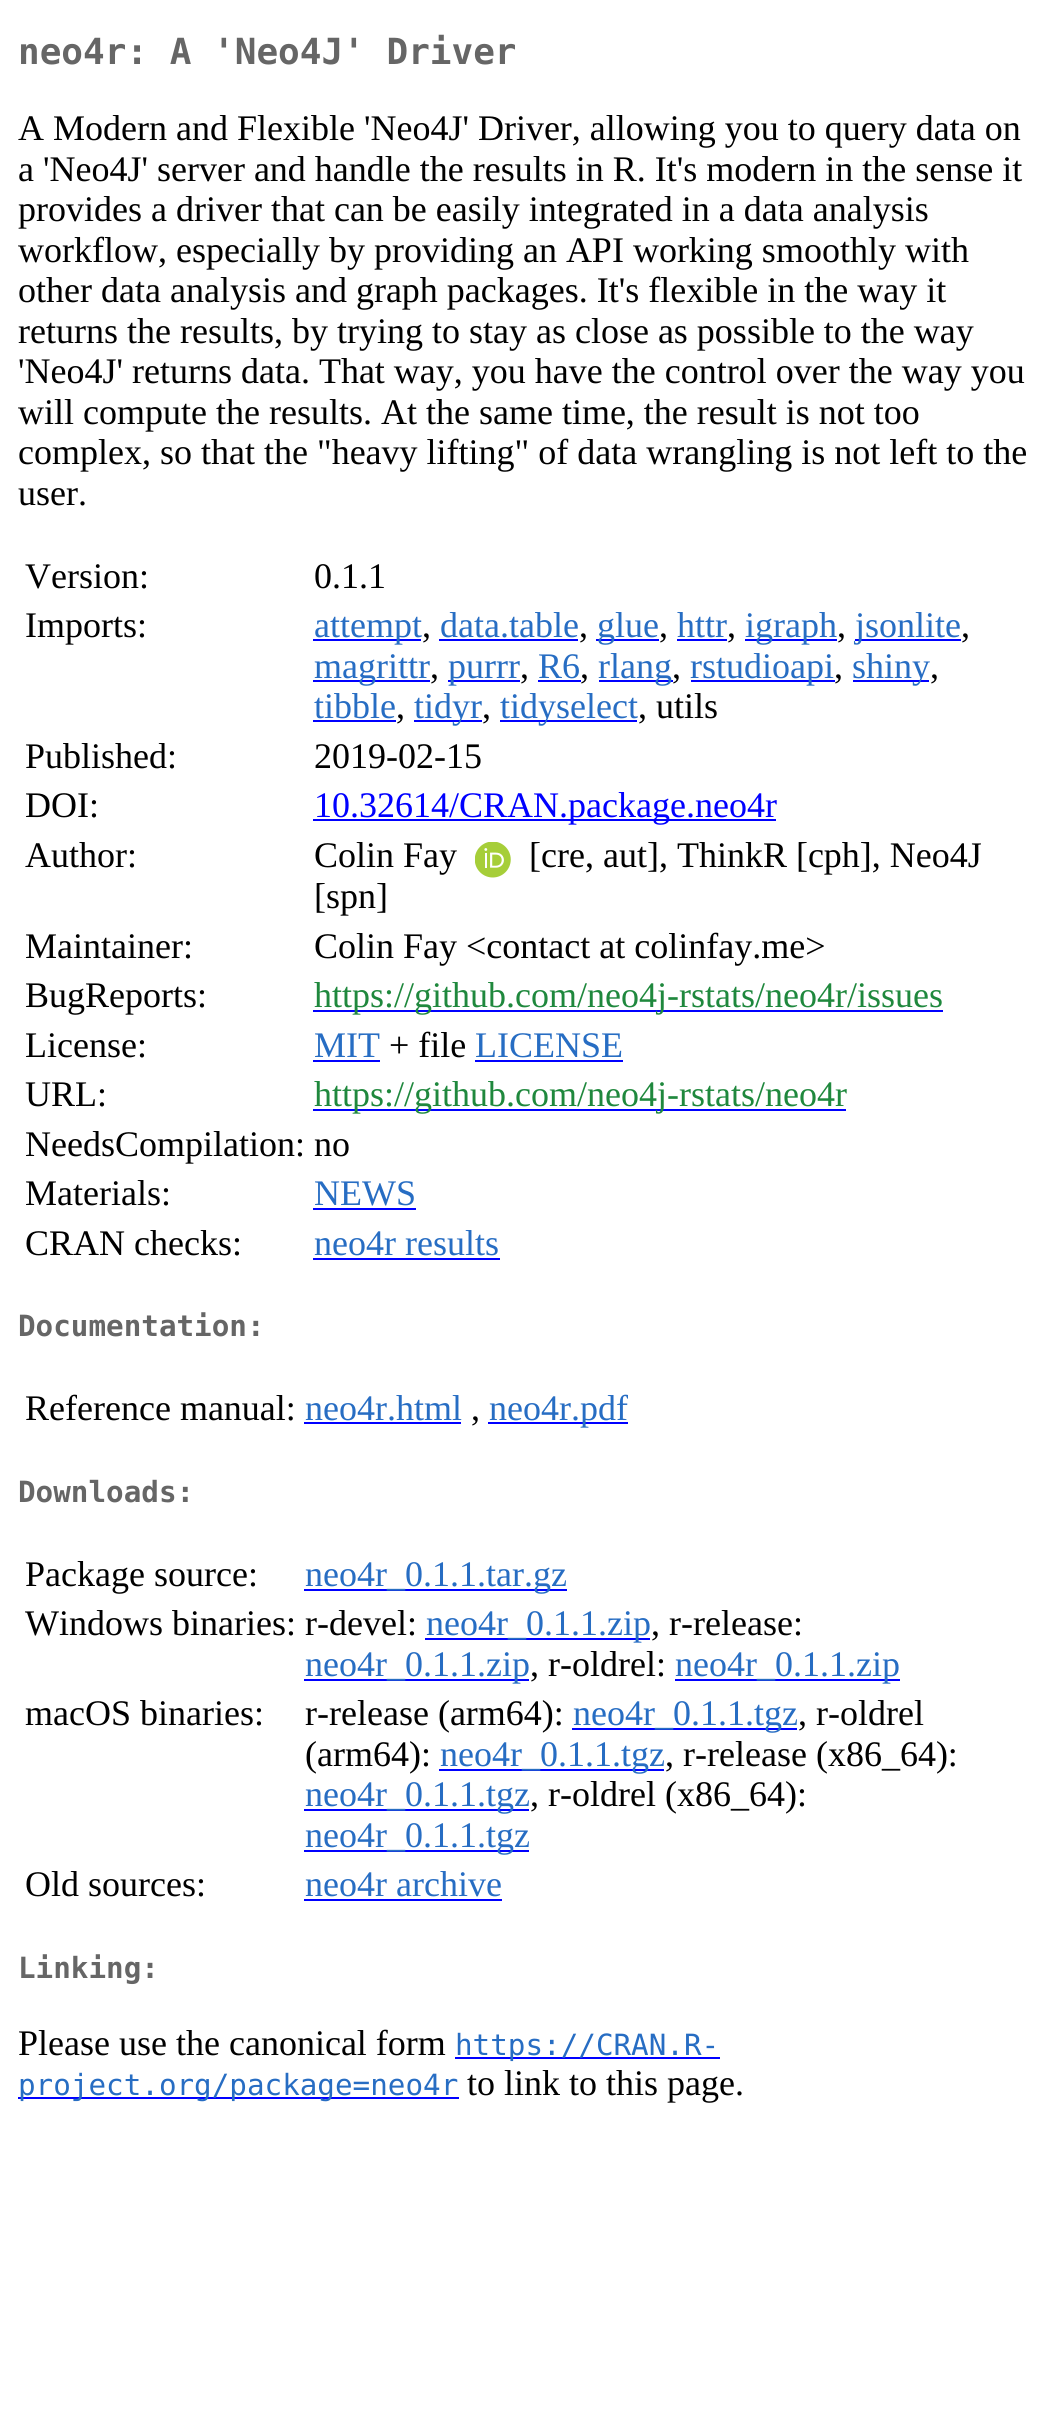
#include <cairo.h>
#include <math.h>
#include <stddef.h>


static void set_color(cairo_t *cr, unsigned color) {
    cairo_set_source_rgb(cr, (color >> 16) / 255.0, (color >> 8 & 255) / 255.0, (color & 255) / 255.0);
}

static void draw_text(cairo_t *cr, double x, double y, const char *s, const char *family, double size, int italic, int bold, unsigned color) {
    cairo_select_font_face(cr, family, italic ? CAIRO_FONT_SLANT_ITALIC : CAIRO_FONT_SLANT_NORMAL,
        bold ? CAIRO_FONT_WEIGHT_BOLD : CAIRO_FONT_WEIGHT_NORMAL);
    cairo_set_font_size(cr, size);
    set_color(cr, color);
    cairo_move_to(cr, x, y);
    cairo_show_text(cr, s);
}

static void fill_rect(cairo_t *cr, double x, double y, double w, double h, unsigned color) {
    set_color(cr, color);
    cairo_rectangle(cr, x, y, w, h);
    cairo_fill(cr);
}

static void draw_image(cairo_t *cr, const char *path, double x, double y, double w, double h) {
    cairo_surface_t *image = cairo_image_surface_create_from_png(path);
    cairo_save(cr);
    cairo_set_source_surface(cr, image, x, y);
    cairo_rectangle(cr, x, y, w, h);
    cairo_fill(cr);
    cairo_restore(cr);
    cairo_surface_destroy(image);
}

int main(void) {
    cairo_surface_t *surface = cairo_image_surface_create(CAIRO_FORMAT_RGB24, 1059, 2425);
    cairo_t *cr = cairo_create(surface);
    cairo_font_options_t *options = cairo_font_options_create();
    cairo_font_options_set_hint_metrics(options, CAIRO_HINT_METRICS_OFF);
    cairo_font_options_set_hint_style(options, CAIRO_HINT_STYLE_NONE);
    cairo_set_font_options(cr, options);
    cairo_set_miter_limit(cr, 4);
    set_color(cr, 0xFFFFFF);
    cairo_paint(cr);
    draw_text(cr, 18, 64, "neo4r: A 'Neo4J' Driver", "DejaVu Sans Mono", 36, 0, 1, 0x666666);
    draw_text(cr, 18, 140, "A Modern and Flexible 'Neo4J' Driver, allowing you to query data on", "Liberation Serif", 36, 0, 0, 0x000000);
    draw_text(cr, 18, 181, "a 'Neo4J' server and handle the results in R. It's modern in the sense it", "Liberation Serif", 36, 0, 0, 0x000000);
    draw_text(cr, 18, 221, "provides a driver that can be easily integrated in a data analysis", "Liberation Serif", 36, 0, 0, 0x000000);
    draw_text(cr, 18, 262, "workflow, especially by providing an API working smoothly with", "Liberation Serif", 36, 0, 0, 0x000000);
    draw_text(cr, 18, 302, "other data analysis and graph packages. It's flexible in the way it", "Liberation Serif", 36, 0, 0, 0x000000);
    draw_text(cr, 18, 343, "returns the results, by trying to stay as close as possible to the way", "Liberation Serif", 36, 0, 0, 0x000000);
    draw_text(cr, 18, 383, "'Neo4J' returns data. That way, you have the control over the way you", "Liberation Serif", 36, 0, 0, 0x000000);
    draw_text(cr, 18, 424, "will compute the results. At the same time, the result is not too", "Liberation Serif", 36, 0, 0, 0x000000);
    draw_text(cr, 18, 464, "complex, so that the \"heavy lifting\" of data wrangling is not left to the", "Liberation Serif", 36, 0, 0, 0x000000);
    draw_text(cr, 18, 505, "user.", "Liberation Serif", 36, 0, 0, 0x000000);
    draw_text(cr, 25, 588, "Version:", "Liberation Serif", 36, 0, 0, 0x000000);
    draw_text(cr, 314, 588, "0.1.1", "Liberation Serif", 36, 0, 0, 0x000000);
    draw_text(cr, 25, 637, "Imports:", "Liberation Serif", 36, 0, 0, 0x000000);
    fill_rect(cr, 313, 639, 108, 2, 0x0000FF);
    draw_text(cr, 314, 637, "attempt", "Liberation Serif", 36, 0, 0, 0x276DC3);
    draw_text(cr, 422, 637, ",", "Liberation Serif", 36, 0, 0, 0x000000);
    draw_text(cr, 440, 637, "data.table", "Liberation Serif", 36, 0, 0, 0x276DC3);
    fill_rect(cr, 439, 639, 139, 2, 0x0000FF);
    draw_text(cr, 579, 637, ",", "Liberation Serif", 36, 0, 0, 0x000000);
    fill_rect(cr, 596, 639, 63, 2, 0x0000FF);
    draw_text(cr, 597, 637, "glue", "Liberation Serif", 36, 0, 0, 0x276DC3);
    draw_text(cr, 659, 637, ",", "Liberation Serif", 36, 0, 0, 0x000000);
    draw_text(cr, 677, 637, "httr", "Liberation Serif", 36, 0, 0, 0x276DC3);
    fill_rect(cr, 677, 639, 50, 2, 0x0000FF);
    draw_text(cr, 727, 637, ",", "Liberation Serif", 36, 0, 0, 0x000000);
    fill_rect(cr, 745, 639, 92, 2, 0x0000FF);
    draw_text(cr, 745, 637, "igraph", "Liberation Serif", 36, 0, 0, 0x276DC3);
    draw_text(cr, 837, 637, ",", "Liberation Serif", 36, 0, 0, 0x000000);
    fill_rect(cr, 855, 639, 106, 2, 0x0000FF);
    draw_text(cr, 855, 637, "jsonlite", "Liberation Serif", 36, 0, 0, 0x276DC3);
    draw_text(cr, 961, 637, ",", "Liberation Serif", 36, 0, 0, 0x000000);
    fill_rect(cr, 313, 680, 117, 2, 0x0000FF);
    draw_text(cr, 314, 678, "magrittr", "Liberation Serif", 36, 0, 0, 0x276DC3);
    draw_text(cr, 430, 678, ",", "Liberation Serif", 36, 0, 0, 0x000000);
    fill_rect(cr, 448, 680, 72, 2, 0x0000FF);
    draw_text(cr, 448, 678, "purrr", "Liberation Serif", 36, 0, 0, 0x276DC3);
    draw_text(cr, 520, 678, ",", "Liberation Serif", 36, 0, 0, 0x000000);
    draw_text(cr, 538, 678, "R6", "Liberation Serif", 36, 0, 0, 0x276DC3);
    fill_rect(cr, 538, 680, 43, 2, 0x0000FF);
    draw_text(cr, 580, 678, ",", "Liberation Serif", 36, 0, 0, 0x000000);
    fill_rect(cr, 599, 680, 74, 2, 0x0000FF);
    draw_text(cr, 598, 678, "rlang", "Liberation Serif", 36, 0, 0, 0x276DC3);
    draw_text(cr, 672, 678, ",", "Liberation Serif", 36, 0, 0, 0x000000);
    fill_rect(cr, 691, 680, 144, 2, 0x0000FF);
    draw_text(cr, 690, 678, "rstudioapi", "Liberation Serif", 36, 0, 0, 0x276DC3);
    draw_text(cr, 834, 678, ",", "Liberation Serif", 36, 0, 0, 0x000000);
    fill_rect(cr, 853, 680, 76, 2, 0x0000FF);
    draw_text(cr, 852, 678, "shiny", "Liberation Serif", 36, 0, 0, 0x276DC3);
    draw_text(cr, 930, 678, ",", "Liberation Serif", 36, 0, 0, 0x000000);
    draw_text(cr, 314, 718, "tibble", "Liberation Serif", 36, 0, 0, 0x276DC3);
    fill_rect(cr, 313, 720, 83, 2, 0x0000FF);
    draw_text(cr, 396, 718, ",", "Liberation Serif", 36, 0, 0, 0x000000);
    fill_rect(cr, 414, 720, 68, 2, 0x0000FF);
    draw_text(cr, 414, 718, "tidyr", "Liberation Serif", 36, 0, 0, 0x276DC3);
    draw_text(cr, 482, 718, ",", "Liberation Serif", 36, 0, 0, 0x000000);
    fill_rect(cr, 500, 720, 137, 2, 0x0000FF);
    draw_text(cr, 500, 718, "tidyselect", "Liberation Serif", 36, 0, 0, 0x276DC3);
    draw_text(cr, 638, 718, ", utils", "Liberation Serif", 36, 0, 0, 0x000000);
    draw_text(cr, 25, 768, "Published:", "Liberation Serif", 36, 0, 0, 0x000000);
    draw_text(cr, 314, 768, "2019-02-15", "Liberation Serif", 36, 0, 0, 0x000000);
    draw_text(cr, 25, 817, "DOI:", "Liberation Serif", 36, 0, 0, 0x000000);
    fill_rect(cr, 313, 819, 463, 2, 0x0000FF);
    draw_text(cr, 314, 817, "10.32614/CRAN.package.neo4r", "Liberation Serif", 36, 0, 0, 0x0000FF);
    draw_text(cr, 25, 867, "Author:", "Liberation Serif", 36, 0, 0, 0x000000);
    draw_text(cr, 314, 867, "Colin Fay", "Liberation Serif", 36, 0, 0, 0x000000);
    draw_image(cr, "assets/img1.png", 475, 842, 36, 36);
    draw_text(cr, 529, 867, "[cre, aut], ThinkR [cph], Neo4J", "Liberation Serif", 36, 0, 0, 0x000000);
    draw_text(cr, 314, 908, "[spn]", "Liberation Serif", 36, 0, 0, 0x000000);
    draw_text(cr, 25, 958, "Maintainer:", "Liberation Serif", 36, 0, 0, 0x000000);
    draw_text(cr, 314, 958, "Colin Fay <contact at colinfay.me>", "Liberation Serif", 36, 0, 0, 0x000000);
    draw_text(cr, 25, 1007, "BugReports:", "Liberation Serif", 36, 0, 0, 0x000000);
    fill_rect(cr, 313, 1010, 630, 2, 0x0000FF);
    draw_text(cr, 314, 1007, "https://github.com/neo4j-rstats/neo4r/issues", "Liberation Serif", 36, 0, 0, 0x1F883D);
    draw_text(cr, 25, 1057, "License:", "Liberation Serif", 36, 0, 0, 0x000000);
    draw_text(cr, 314, 1057, "MIT", "Liberation Serif", 36, 0, 0, 0x276DC3);
    fill_rect(cr, 313, 1060, 67, 2, 0x0000FF);
    draw_text(cr, 389, 1057, "+ file", "Liberation Serif", 36, 0, 0, 0x000000);
    draw_text(cr, 475, 1057, "LICENSE", "Liberation Serif", 36, 0, 0, 0x276DC3);
    fill_rect(cr, 475, 1060, 148, 2, 0x0000FF);
    draw_text(cr, 25, 1106, "URL:", "Liberation Serif", 36, 0, 0, 0x000000);
    fill_rect(cr, 313, 1109, 533, 2, 0x0000FF);
    draw_text(cr, 314, 1106, "https://github.com/neo4j-rstats/neo4r", "Liberation Serif", 36, 0, 0, 0x1F883D);
    draw_text(cr, 25, 1156, "NeedsCompilation: no", "Liberation Serif", 36, 0, 0, 0x000000);
    draw_text(cr, 25, 1205, "Materials:", "Liberation Serif", 36, 0, 0, 0x000000);
    draw_text(cr, 314, 1205, "NEWS", "Liberation Serif", 36, 0, 0, 0x276DC3);
    fill_rect(cr, 313, 1208, 103, 2, 0x0000FF);
    draw_text(cr, 25, 1255, "CRAN checks:", "Liberation Serif", 36, 0, 0, 0x000000);
    draw_text(cr, 314, 1255, "neo4r results", "Liberation Serif", 36, 0, 0, 0x276DC3);
    fill_rect(cr, 313, 1258, 187, 2, 0x0000FF);
    draw_text(cr, 18, 1336, "Documentation:", "DejaVu Sans Mono", 29.25, 0, 1, 0x666666);
    draw_text(cr, 25, 1420, "Reference manual:", "Liberation Serif", 36, 0, 0, 0x000000);
    draw_text(cr, 305, 1420, "neo4r.html", "Liberation Serif", 36, 0, 0, 0x276DC3);
    fill_rect(cr, 304, 1422, 157, 2, 0x0000FF);
    draw_text(cr, 471, 1420, ",", "Liberation Serif", 36, 0, 0, 0x000000);
    fill_rect(cr, 488, 1422, 140, 2, 0x0000FF);
    draw_text(cr, 489, 1420, "neo4r.pdf", "Liberation Serif", 36, 0, 0, 0x276DC3);
    draw_text(cr, 18, 1502, "Downloads:", "DejaVu Sans Mono", 29.25, 0, 1, 0x666666);
    draw_text(cr, 25, 1586, "Package source:", "Liberation Serif", 36, 0, 0, 0x000000);
    fill_rect(cr, 304, 1589, 263, 2, 0x0000FF);
    draw_text(cr, 305, 1586, "neo4r_0.1.1.tar.gz", "Liberation Serif", 36, 0, 0, 0x276DC3);
    draw_text(cr, 25, 1635, "Windows binaries: r-devel:", "Liberation Serif", 36, 0, 0, 0x000000);
    fill_rect(cr, 425, 1638, 225, 2, 0x0000FF);
    draw_text(cr, 426, 1635, "neo4r_0.1.1.zip", "Liberation Serif", 36, 0, 0, 0x276DC3);
    draw_text(cr, 651, 1635, ", r-release:", "Liberation Serif", 36, 0, 0, 0x000000);
    fill_rect(cr, 304, 1679, 225, 2, 0x0000FF);
    draw_text(cr, 305, 1676, "neo4r_0.1.1.zip", "Liberation Serif", 36, 0, 0, 0x276DC3);
    draw_text(cr, 530, 1676, ", r-oldrel:", "Liberation Serif", 36, 0, 0, 0x000000);
    fill_rect(cr, 675, 1679, 225, 2, 0x0000FF);
    draw_text(cr, 675, 1676, "neo4r_0.1.1.zip", "Liberation Serif", 36, 0, 0, 0x276DC3);
    draw_text(cr, 25, 1725, "macOS binaries:", "Liberation Serif", 36, 0, 0, 0x000000);
    draw_text(cr, 305, 1725, "r-release (arm64):", "Liberation Serif", 36, 0, 0, 0x000000);
    fill_rect(cr, 572, 1728, 225, 2, 0x0000FF);
    draw_text(cr, 573, 1725, "neo4r_0.1.1.tgz", "Liberation Serif", 36, 0, 0, 0x276DC3);
    draw_text(cr, 798, 1725, ", r-oldrel", "Liberation Serif", 36, 0, 0, 0x000000);
    draw_text(cr, 305, 1766, "(arm64):", "Liberation Serif", 36, 0, 0, 0x000000);
    fill_rect(cr, 439, 1769, 225, 2, 0x0000FF);
    draw_text(cr, 440, 1766, "neo4r_0.1.1.tgz", "Liberation Serif", 36, 0, 0, 0x276DC3);
    draw_text(cr, 665, 1766, ", r-release (x86_64):", "Liberation Serif", 36, 0, 0, 0x000000);
    fill_rect(cr, 304, 1809, 225, 2, 0x0000FF);
    draw_text(cr, 305, 1806, "neo4r_0.1.1.tgz", "Liberation Serif", 36, 0, 0, 0x276DC3);
    draw_text(cr, 530, 1806, ", r-oldrel (x86_64):", "Liberation Serif", 36, 0, 0, 0x000000);
    fill_rect(cr, 304, 1850, 225, 2, 0x0000FF);
    draw_text(cr, 305, 1847, "neo4r_0.1.1.tgz", "Liberation Serif", 36, 0, 0, 0x276DC3);
    draw_text(cr, 25, 1896, "Old sources:", "Liberation Serif", 36, 0, 0, 0x000000);
    draw_text(cr, 305, 1896, "neo4r archive", "Liberation Serif", 36, 0, 0, 0x276DC3);
    fill_rect(cr, 304, 1899, 198, 2, 0x0000FF);
    draw_text(cr, 18, 1978, "Linking:", "DejaVu Sans Mono", 29.25, 0, 1, 0x666666);
    draw_text(cr, 18, 2055, "Please use the canonical form", "Liberation Serif", 36, 0, 0, 0x000000);
    fill_rect(cr, 455, 2057, 265, 2, 0x0000FF);
    draw_text(cr, 455, 2055, "https://CRAN.R-", "DejaVu Sans Mono", 29.25, 0, 0, 0x276DC3);
    fill_rect(cr, 18, 2097, 441, 2, 0x0000FF);
    draw_text(cr, 18, 2095, "project.org/package=neo4r", "DejaVu Sans Mono", 29.25, 0, 0, 0x276DC3);
    draw_text(cr, 467, 2095, "to link to this page.", "Liberation Serif", 36, 0, 0, 0x000000);
    cairo_surface_write_to_png(surface, "output.png");
    cairo_font_options_destroy(options);
    cairo_destroy(cr);
    cairo_surface_destroy(surface);
    return 0;
}
